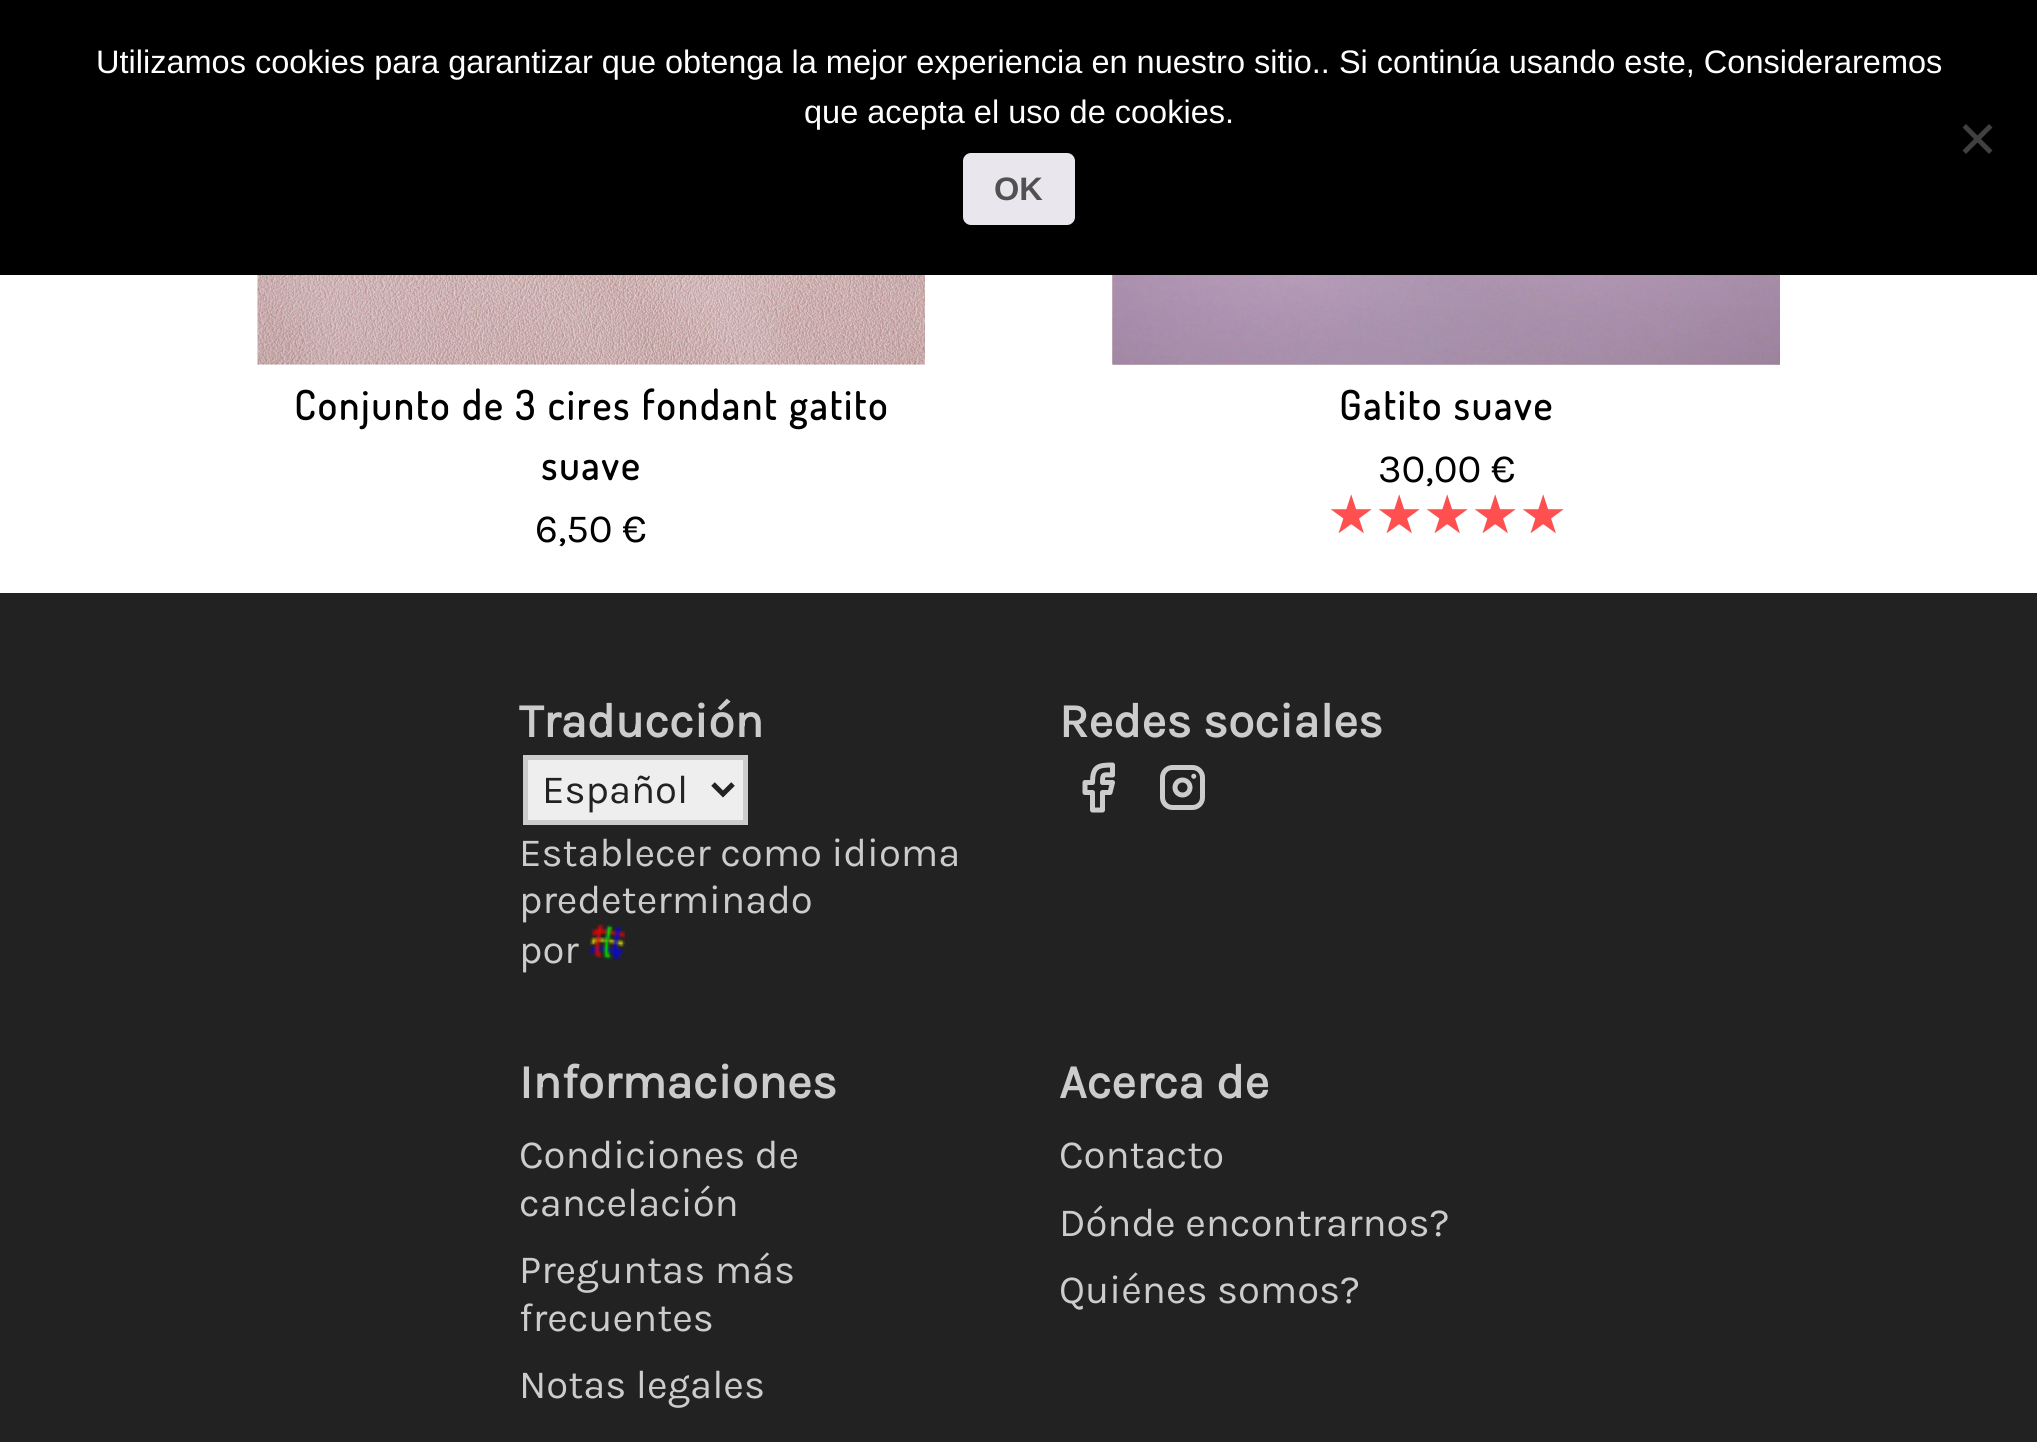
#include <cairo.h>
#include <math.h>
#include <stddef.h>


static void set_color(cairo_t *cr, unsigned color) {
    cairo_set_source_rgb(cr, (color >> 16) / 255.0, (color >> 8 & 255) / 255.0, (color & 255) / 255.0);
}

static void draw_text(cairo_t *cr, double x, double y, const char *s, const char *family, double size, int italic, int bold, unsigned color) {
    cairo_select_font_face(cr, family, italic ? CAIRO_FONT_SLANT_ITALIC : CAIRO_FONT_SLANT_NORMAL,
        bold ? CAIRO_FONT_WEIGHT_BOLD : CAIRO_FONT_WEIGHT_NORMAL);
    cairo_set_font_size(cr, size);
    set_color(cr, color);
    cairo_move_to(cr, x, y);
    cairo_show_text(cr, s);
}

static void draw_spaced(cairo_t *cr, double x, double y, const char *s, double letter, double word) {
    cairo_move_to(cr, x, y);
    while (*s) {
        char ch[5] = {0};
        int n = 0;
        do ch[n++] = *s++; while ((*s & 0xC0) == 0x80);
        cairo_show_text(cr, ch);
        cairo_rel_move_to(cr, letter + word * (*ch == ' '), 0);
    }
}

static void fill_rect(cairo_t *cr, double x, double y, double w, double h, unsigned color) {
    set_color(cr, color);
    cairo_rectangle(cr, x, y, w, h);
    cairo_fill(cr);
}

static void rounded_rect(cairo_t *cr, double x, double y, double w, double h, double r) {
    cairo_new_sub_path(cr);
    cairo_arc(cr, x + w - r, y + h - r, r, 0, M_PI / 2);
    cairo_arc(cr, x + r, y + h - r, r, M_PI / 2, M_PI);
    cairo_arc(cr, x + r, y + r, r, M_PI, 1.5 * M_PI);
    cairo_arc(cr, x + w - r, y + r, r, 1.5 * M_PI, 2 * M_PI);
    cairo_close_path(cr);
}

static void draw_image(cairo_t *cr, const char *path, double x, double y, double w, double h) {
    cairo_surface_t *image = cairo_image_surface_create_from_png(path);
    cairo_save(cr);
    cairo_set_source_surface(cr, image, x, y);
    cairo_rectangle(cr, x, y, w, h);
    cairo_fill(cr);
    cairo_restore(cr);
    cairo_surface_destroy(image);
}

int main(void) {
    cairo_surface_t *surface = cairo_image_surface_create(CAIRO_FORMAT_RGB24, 2037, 1442);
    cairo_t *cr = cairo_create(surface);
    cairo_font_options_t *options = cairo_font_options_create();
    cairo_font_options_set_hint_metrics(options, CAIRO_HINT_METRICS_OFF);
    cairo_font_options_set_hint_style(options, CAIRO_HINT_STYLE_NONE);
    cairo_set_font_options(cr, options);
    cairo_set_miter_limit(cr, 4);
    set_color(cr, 0xFFFFFF);
    cairo_paint(cr);
    fill_rect(cr, 0, 0, 2037, 275, 0x000000);
    draw_text(cr, 96, 73, "Utilizamos cookies para garantizar que obtenga la mejor experiencia en nuestro sitio.. Si continúa usando este, Consideraremos", "Liberation Sans", 32.5, 0, 0, 0xFFFFFF);
    draw_text(cr, 804, 123, "que acepta el uso de cookies.", "Liberation Sans", 32.5, 0, 0, 0xFFFFFF);
    set_color(cr, 0x404040);
    cairo_new_path(cr);
    cairo_move_to(cr, 1989, 124);
    cairo_line_to(cr, 1992.5, 127.5);
    cairo_line_to(cr, 1966, 154);
    cairo_line_to(cr, 1962.5, 150.5);
    cairo_close_path(cr);
    cairo_fill(cr);
    cairo_new_path(cr);
    cairo_move_to(cr, 1962.5, 127.5);
    cairo_line_to(cr, 1966, 124);
    cairo_line_to(cr, 1992.5, 150.5);
    cairo_line_to(cr, 1989, 154);
    cairo_close_path(cr);
    cairo_fill(cr);
    set_color(cr, 0xE9E6ED);
    rounded_rect(cr, 963, 153, 112, 72, 8);
    cairo_fill(cr);
    draw_text(cr, 994, 200, "OK", "Liberation Sans", 32.5, 0, 1, 0x515151);
    draw_image(cr, "assets/img1.png", 257, 275, 668, 90);
    cairo_select_font_face(cr, "Dosis", CAIRO_FONT_SLANT_NORMAL, CAIRO_FONT_WEIGHT_BOLD);
    cairo_set_font_size(cr, 40);
    set_color(cr, 0x000000);
    draw_spaced(cr, 294, 420, "Conjunto de 3 cires fondant gatito", 2.5, 0);
    draw_spaced(cr, 541, 480, "suave", 2.5, 0);
    draw_text(cr, 535, 542, "6,50 €", "Karla", 40, 0, 0, 0x000000);
    draw_image(cr, "assets/img2.png", 1112, 275, 668, 90);
    draw_image(cr, "assets/img3.png", 1112, 275, 668, 90);
    cairo_select_font_face(cr, "Dosis", CAIRO_FONT_SLANT_NORMAL, CAIRO_FONT_WEIGHT_BOLD);
    draw_spaced(cr, 1339, 420, "Gatito suave", 2.5, 0);
    draw_text(cr, 1378, 482, "30,00 €", "Karla", 40, 0, 0, 0x000000);
    draw_text(cr, 1329, 532, "★", "DejaVu Sans", 48, 0, 1, 0xFE504F);
    draw_text(cr, 1377, 532, "★", "DejaVu Sans", 48, 0, 1, 0xFE504F);
    draw_text(cr, 1425, 532, "★", "DejaVu Sans", 48, 0, 1, 0xFE504F);
    draw_text(cr, 1473, 532, "★", "DejaVu Sans", 48, 0, 1, 0xFE504F);
    draw_text(cr, 1521, 532, "★", "DejaVu Sans", 48, 0, 1, 0xFE504F);
    fill_rect(cr, 0, 593, 2037, 849, 0x222222);
    draw_text(cr, 519, 737, "Traducción", "Karla", 48, 0, 1, 0xCCCCCC);
    set_color(cr, 0xEEEEEE);
    cairo_rectangle(cr, 525.5, 757.5, 220, 65);
    cairo_fill_preserve(cr);
    set_color(cr, 0xCCCCCC);
    cairo_set_line_width(cr, 5);
    cairo_stroke(cr);
    cairo_new_path(cr);
    cairo_move_to(cr, 713, 784);
    cairo_line_to(cr, 723, 794);
    cairo_line_to(cr, 733, 784);
    set_color(cr, 0x222222);
    cairo_stroke(cr);
    draw_text(cr, 542, 803, "Español", "Karla", 40, 0, 0, 0x222222);
    draw_text(cr, 519, 866, "Establecer como idioma", "Karla", 40, 0, 0, 0xCCCCCC);
    draw_text(cr, 519, 913, "predeterminado", "Karla", 40, 0, 0, 0xCCCCCC);
    draw_text(cr, 519, 963, "por", "Karla", 40, 0, 0, 0xCCCCCC);
    draw_image(cr, "assets/img4.png", 590, 924, 35, 36);
    draw_text(cr, 1059, 737, "Redes sociales", "Karla", 48, 0, 1, 0xCCCCCC);
    cairo_new_path(cr);
    cairo_move_to(cr, 1085, 782.5);
    cairo_line_to(cr, 1085, 792.5);
    cairo_line_to(cr, 1092.5, 792.5);
    cairo_line_to(cr, 1092.5, 810);
    cairo_line_to(cr, 1102.5, 810);
    cairo_line_to(cr, 1102.5, 792.5);
    cairo_line_to(cr, 1110, 792.5);
    cairo_line_to(cr, 1112.5, 782.5);
    cairo_line_to(cr, 1102.5, 782.5);
    cairo_curve_to(cr, 1102.5, 773, 1103.5, 775, 1112.5, 775);
    cairo_line_to(cr, 1112.5, 765);
    cairo_curve_to(cr, 1098, 765, 1092.5, 766.5, 1092.5, 782.5);
    cairo_line_to(cr, 1085, 782.5);
    cairo_set_line_cap(cr, CAIRO_LINE_CAP_ROUND);
    cairo_set_line_join(cr, CAIRO_LINE_JOIN_ROUND);
    cairo_stroke(cr);
    draw_image(cr, "assets/img5.png", 1160, 765, 45, 45);
    draw_text(cr, 519, 1098, "Informaciones", "Karla", 48, 0, 1, 0xCCCCCC);
    draw_text(cr, 519, 1168, "Condiciones de", "Karla", 40, 0, 0, 0xCCCCCC);
    draw_text(cr, 519, 1216, "cancelación", "Karla", 40, 0, 0, 0xCCCCCC);
    draw_text(cr, 519, 1283, "Preguntas más", "Karla", 40, 0, 0, 0xCCCCCC);
    draw_text(cr, 519, 1331, "frecuentes", "Karla", 40, 0, 0, 0xCCCCCC);
    draw_text(cr, 519, 1398, "Notas legales", "Karla", 40, 0, 0, 0xCCCCCC);
    draw_text(cr, 1059, 1098, "Acerca de", "Karla", 48, 0, 1, 0xCCCCCC);
    draw_text(cr, 1059, 1168, "Contacto", "Karla", 40, 0, 0, 0xCCCCCC);
    draw_text(cr, 1059, 1236, "Dónde encontrarnos?", "Karla", 40, 0, 0, 0xCCCCCC);
    draw_text(cr, 1059, 1303, "Quiénes somos?", "Karla", 40, 0, 0, 0xCCCCCC);
    cairo_surface_write_to_png(surface, "output.png");
    cairo_font_options_destroy(options);
    cairo_destroy(cr);
    cairo_surface_destroy(surface);
    return 0;
}
